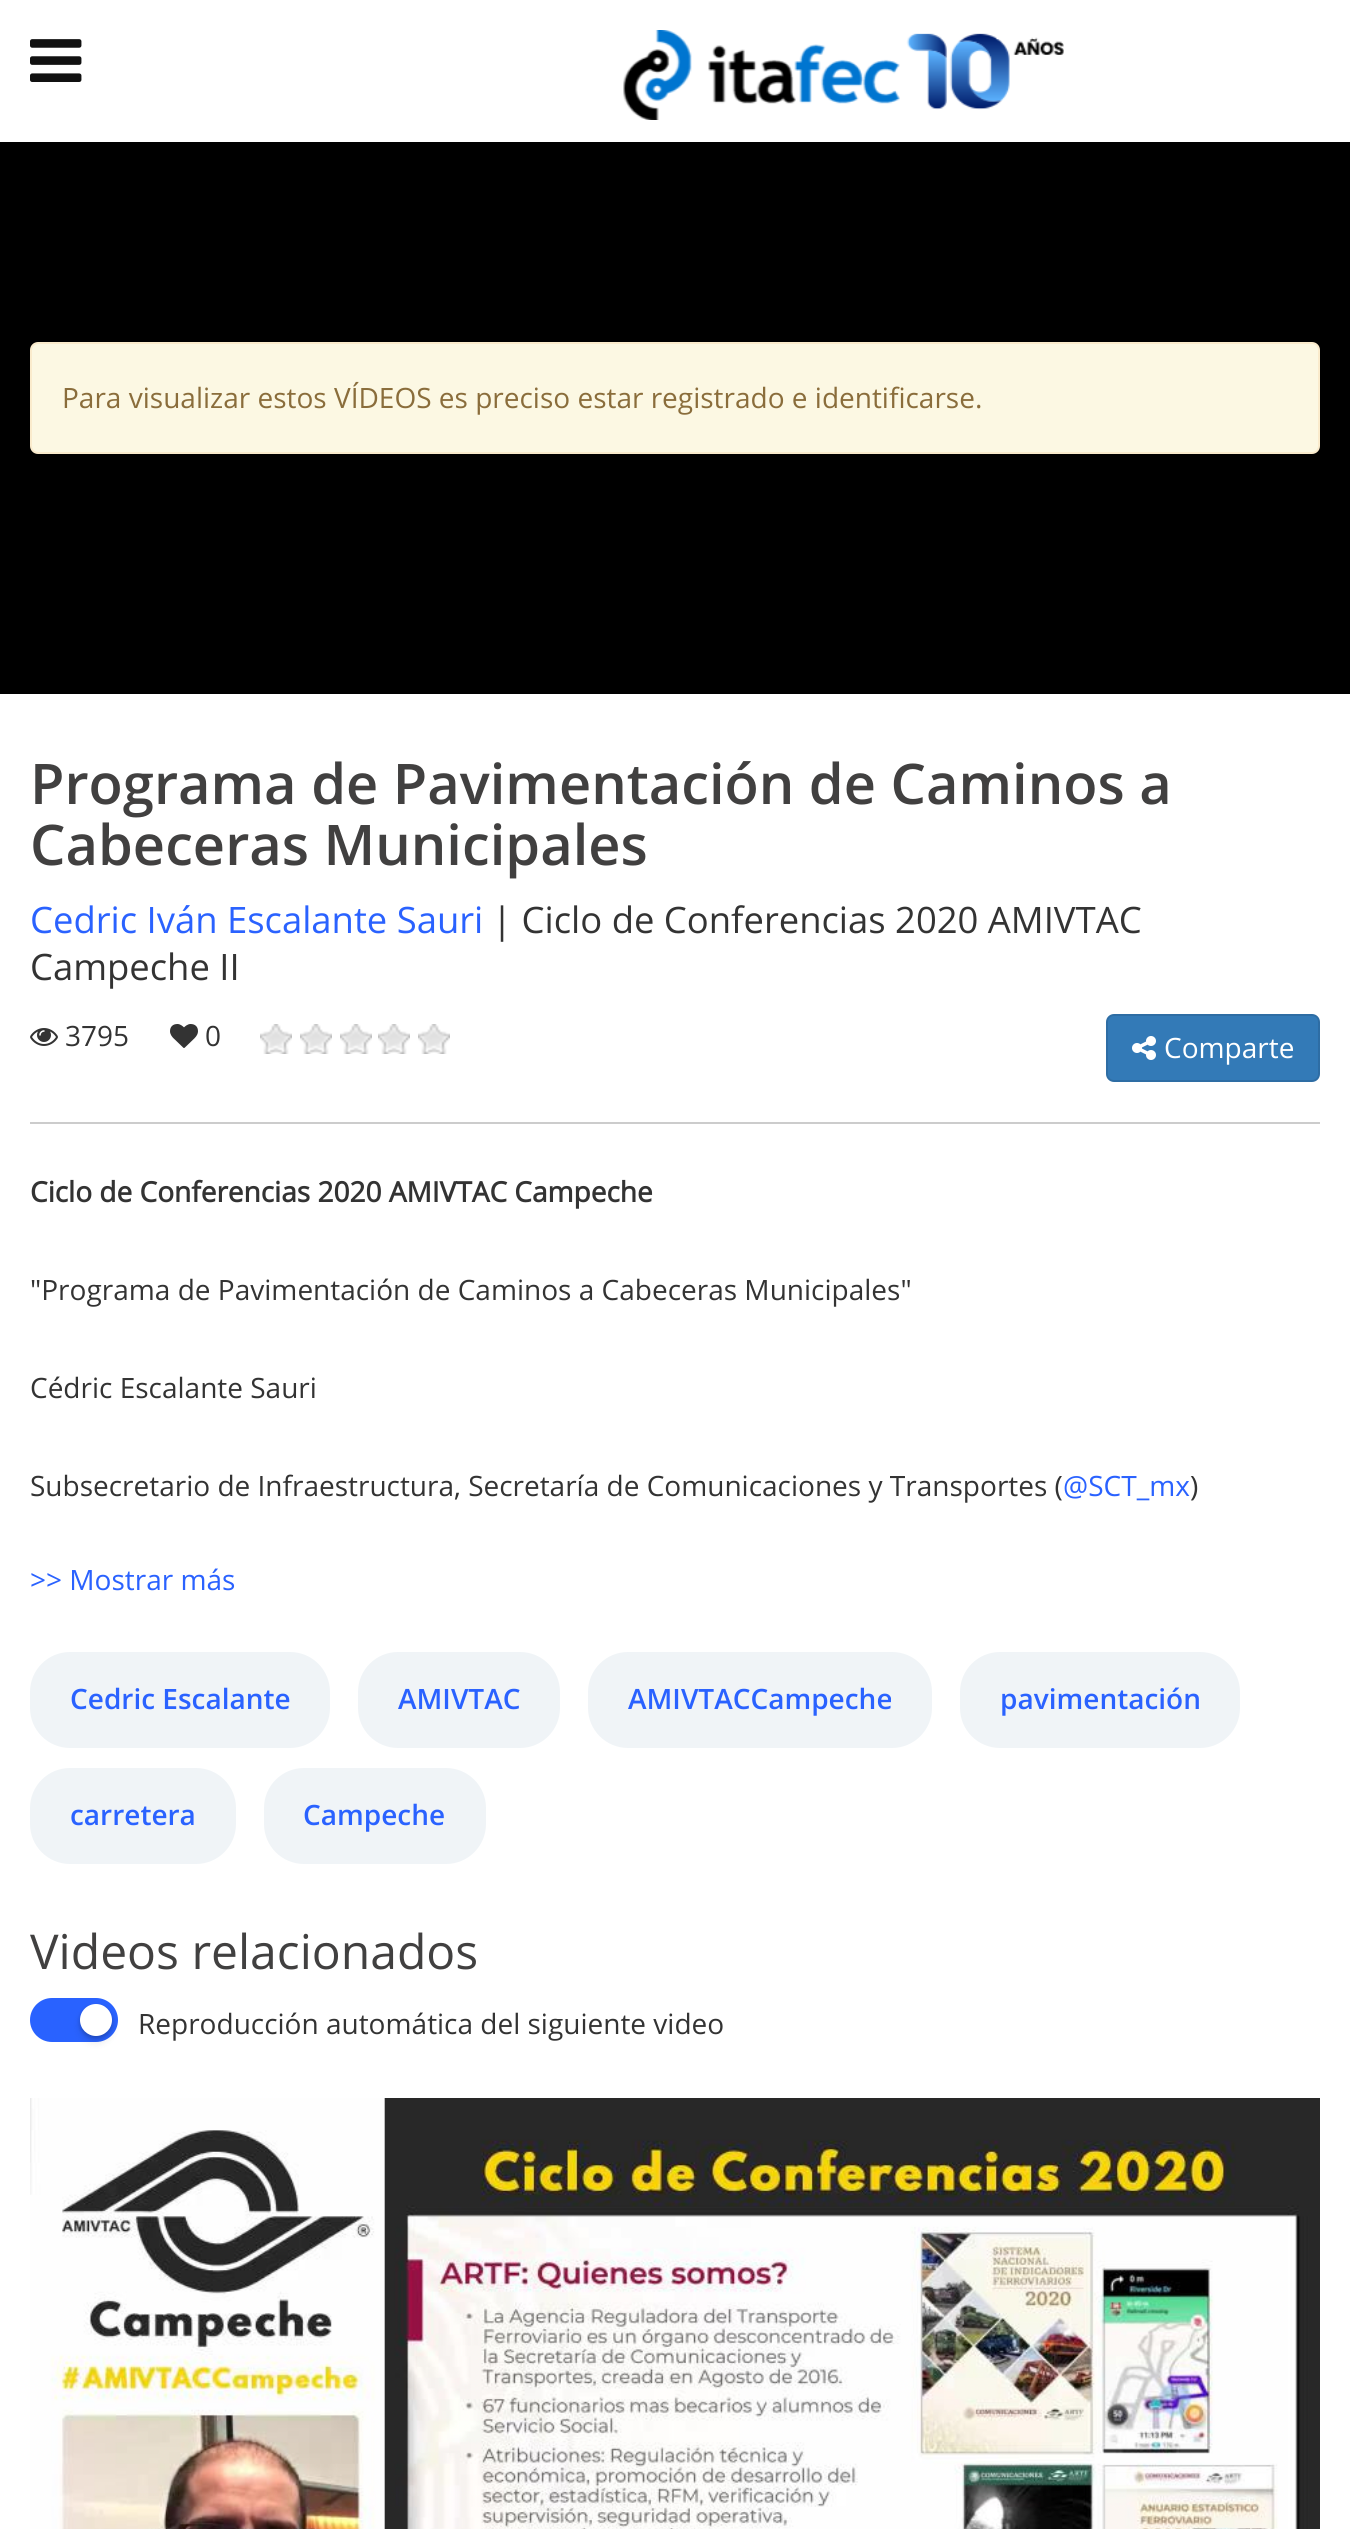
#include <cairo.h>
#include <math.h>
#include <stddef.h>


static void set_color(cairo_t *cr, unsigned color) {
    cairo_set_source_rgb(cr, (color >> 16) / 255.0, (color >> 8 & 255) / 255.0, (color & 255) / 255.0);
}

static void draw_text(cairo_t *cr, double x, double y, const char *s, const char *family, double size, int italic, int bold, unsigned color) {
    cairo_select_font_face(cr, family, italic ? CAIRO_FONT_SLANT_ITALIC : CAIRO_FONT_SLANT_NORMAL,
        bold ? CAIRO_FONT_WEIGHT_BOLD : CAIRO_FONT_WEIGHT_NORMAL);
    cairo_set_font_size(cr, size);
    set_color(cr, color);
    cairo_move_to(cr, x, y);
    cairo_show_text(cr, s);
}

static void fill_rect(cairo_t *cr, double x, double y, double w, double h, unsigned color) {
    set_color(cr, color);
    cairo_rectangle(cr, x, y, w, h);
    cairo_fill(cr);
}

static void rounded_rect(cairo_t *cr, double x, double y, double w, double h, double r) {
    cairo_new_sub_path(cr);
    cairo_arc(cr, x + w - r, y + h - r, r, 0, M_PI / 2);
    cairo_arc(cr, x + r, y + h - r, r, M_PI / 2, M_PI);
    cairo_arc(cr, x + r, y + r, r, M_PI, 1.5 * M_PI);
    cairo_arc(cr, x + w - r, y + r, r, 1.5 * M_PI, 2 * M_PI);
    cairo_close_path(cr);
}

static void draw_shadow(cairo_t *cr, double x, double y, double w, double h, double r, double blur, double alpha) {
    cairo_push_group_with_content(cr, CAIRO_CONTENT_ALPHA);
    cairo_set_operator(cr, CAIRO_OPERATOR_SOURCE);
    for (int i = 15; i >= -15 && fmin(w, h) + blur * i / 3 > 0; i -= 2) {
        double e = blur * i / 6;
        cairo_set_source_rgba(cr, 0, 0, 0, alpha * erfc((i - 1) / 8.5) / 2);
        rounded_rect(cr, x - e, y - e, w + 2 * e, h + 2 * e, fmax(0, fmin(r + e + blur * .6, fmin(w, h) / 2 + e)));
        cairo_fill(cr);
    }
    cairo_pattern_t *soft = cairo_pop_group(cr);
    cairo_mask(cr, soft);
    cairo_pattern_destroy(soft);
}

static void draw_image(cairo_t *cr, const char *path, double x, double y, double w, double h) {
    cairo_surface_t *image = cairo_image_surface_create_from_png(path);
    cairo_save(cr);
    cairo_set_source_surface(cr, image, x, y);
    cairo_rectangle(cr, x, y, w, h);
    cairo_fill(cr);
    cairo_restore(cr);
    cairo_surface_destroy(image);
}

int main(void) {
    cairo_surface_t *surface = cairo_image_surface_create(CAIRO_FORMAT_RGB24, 1350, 2529);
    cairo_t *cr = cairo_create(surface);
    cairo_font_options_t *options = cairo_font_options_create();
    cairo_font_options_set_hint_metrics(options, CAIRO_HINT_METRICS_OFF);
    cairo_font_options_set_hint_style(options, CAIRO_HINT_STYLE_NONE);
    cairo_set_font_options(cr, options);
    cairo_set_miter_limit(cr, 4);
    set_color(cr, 0xFFFFFF);
    cairo_paint(cr);
    draw_image(cr, "assets/img1.png", 30, 39, 52, 43);
    draw_image(cr, "assets/img2.png", 623, 30, 441, 90);
    fill_rect(cr, 0, 142, 1350, 552, 0x000000);
    set_color(cr, 0xFCF8E3);
    rounded_rect(cr, 31, 343, 1288, 110, 7);
    cairo_fill_preserve(cr);
    set_color(cr, 0xFAEBCC);
    cairo_stroke(cr);
    draw_text(cr, 62, 408, "Para visualizar estos VÍDEOS es preciso estar registrado e identificarse.", "Open Sans", 28, 0, 0, 0x8A6D3B);
    draw_text(cr, 30, 804, "Programa de Pavimentación de Caminos a", "Open Sans SemiBold", 56, 0, 0, 0x414040);
    draw_text(cr, 30, 865, "Cabeceras Municipales", "Open Sans SemiBold", 56, 0, 0, 0x414040);
    draw_text(cr, 30, 933, "Cedric Iván Escalante Sauri", "Open Sans", 36.4, 0, 0, 0x2A62FF);
    draw_text(cr, 492, 933, "| Ciclo de Conferencias 2020 AMIVTAC", "Open Sans", 36.4, 0, 0, 0x333333);
    draw_text(cr, 30, 980, "Campeche II", "Open Sans", 36.4, 0, 0, 0x333333);
    draw_image(cr, "assets/img3.png", 30, 1028, 28, 18);
    draw_text(cr, 65, 1046, "3795", "Open Sans", 28, 0, 0, 0x333333);
    draw_image(cr, "assets/img4.png", 170, 1024, 28, 24);
    draw_text(cr, 205, 1046, "0", "Open Sans", 28, 0, 0, 0x333333);
    draw_image(cr, "assets/img5.png", 260, 1024, 32, 30);
    draw_image(cr, "assets/img5.png", 300, 1024, 32, 30);
    draw_image(cr, "assets/img5.png", 340, 1024, 32, 30);
    draw_image(cr, "assets/img5.png", 378, 1024, 32, 30);
    draw_image(cr, "assets/img5.png", 418, 1024, 32, 30);
    set_color(cr, 0x337AB7);
    rounded_rect(cr, 1107, 1015, 212, 66, 7);
    cairo_fill_preserve(cr);
    set_color(cr, 0x2E6DA4);
    cairo_stroke(cr);
    draw_image(cr, "assets/img6.png", 1132, 1036, 24, 24);
    draw_text(cr, 1164, 1058, "Comparte", "Open Sans", 28, 0, 0, 0xFFFFFF);
    fill_rect(cr, 30, 1122, 1290, 2, 0xCCCCCC);
    draw_text(cr, 30, 1202, "Ciclo de Conferencias 2020 AMIVTAC Campeche", "Open Sans", 28, 0, 1, 0x333333);
    draw_text(cr, 30, 1300, "\"Programa de Pavimentación de Caminos a Cabeceras Municipales\"", "Open Sans", 28, 0, 0, 0x333333);
    draw_text(cr, 30, 1398, "Cédric Escalante Sauri", "Open Sans", 28, 0, 0, 0x333333);
    draw_text(cr, 30, 1496, "Subsecretario de Infraestructura, Secretaría de Comunicaciones y Transportes (", "Open Sans", 28, 0, 0, 0x333333);
    draw_text(cr, 1063, 1496, "@SCT_mx", "Open Sans", 28, 0, 0, 0x2A62FF);
    draw_text(cr, 1190, 1496, ")", "Open Sans", 28, 0, 0, 0x333333);
    draw_text(cr, 30, 1590, ">> Mostrar más", "Open Sans", 28, 0, 0, 0x2A62FF);
    set_color(cr, 0xF0F4F7);
    rounded_rect(cr, 30, 1652, 300, 96, 40);
    cairo_fill(cr);
    draw_text(cr, 70, 1709, "Cedric Escalante", "Open Sans SemiBold", 28, 0, 0, 0x2A62FF);
    set_color(cr, 0xF0F4F7);
    rounded_rect(cr, 358, 1652, 202, 96, 40);
    cairo_fill(cr);
    draw_text(cr, 398, 1709, "AMIVTAC", "Open Sans SemiBold", 28, 0, 0, 0x2A62FF);
    set_color(cr, 0xF0F4F7);
    rounded_rect(cr, 588, 1652, 344, 96, 40);
    cairo_fill(cr);
    draw_text(cr, 628, 1709, "AMIVTACCampeche", "Open Sans SemiBold", 28, 0, 0, 0x2A62FF);
    set_color(cr, 0xF0F4F7);
    rounded_rect(cr, 960, 1652, 280, 96, 40);
    cairo_fill(cr);
    draw_text(cr, 1000, 1709, "pavimentación", "Open Sans SemiBold", 28, 0, 0, 0x2A62FF);
    set_color(cr, 0xF0F4F7);
    rounded_rect(cr, 30, 1768, 206, 96, 40);
    cairo_fill(cr);
    draw_text(cr, 70, 1825, "carretera", "Open Sans SemiBold", 28, 0, 0, 0x2A62FF);
    set_color(cr, 0xF0F4F7);
    rounded_rect(cr, 264, 1768, 222, 96, 40);
    cairo_fill(cr);
    draw_text(cr, 303, 1825, "Campeche", "Open Sans SemiBold", 28, 0, 0, 0x2A62FF);
    draw_text(cr, 30, 1969, "Videos relacionados", "Open Sans", 48, 0, 0, 0x414040);
    set_color(cr, 0x2962FF);
    rounded_rect(cr, 30, 1998, 88, 44, 22);
    cairo_fill(cr);
    set_color(cr, 0x000000);
    draw_shadow(cr, 80, 2010, 32, 32, 16, 4, 0.1);
    draw_shadow(cr, 80, 2006, 32, 32, 16, 2, 0.2);
    set_color(cr, 0xFFFFFF);
    cairo_arc(cr, 96, 2020, 16, 0, 2 * M_PI);
    cairo_fill(cr);
    draw_text(cr, 138, 2034, "Reproducción automática del siguiente video", "Open Sans", 28, 0, 0, 0x333333);
    draw_image(cr, "assets/img7.png", 30, 2098, 1290, 431);
    cairo_surface_write_to_png(surface, "output.png");
    cairo_font_options_destroy(options);
    cairo_destroy(cr);
    cairo_surface_destroy(surface);
    return 0;
}
